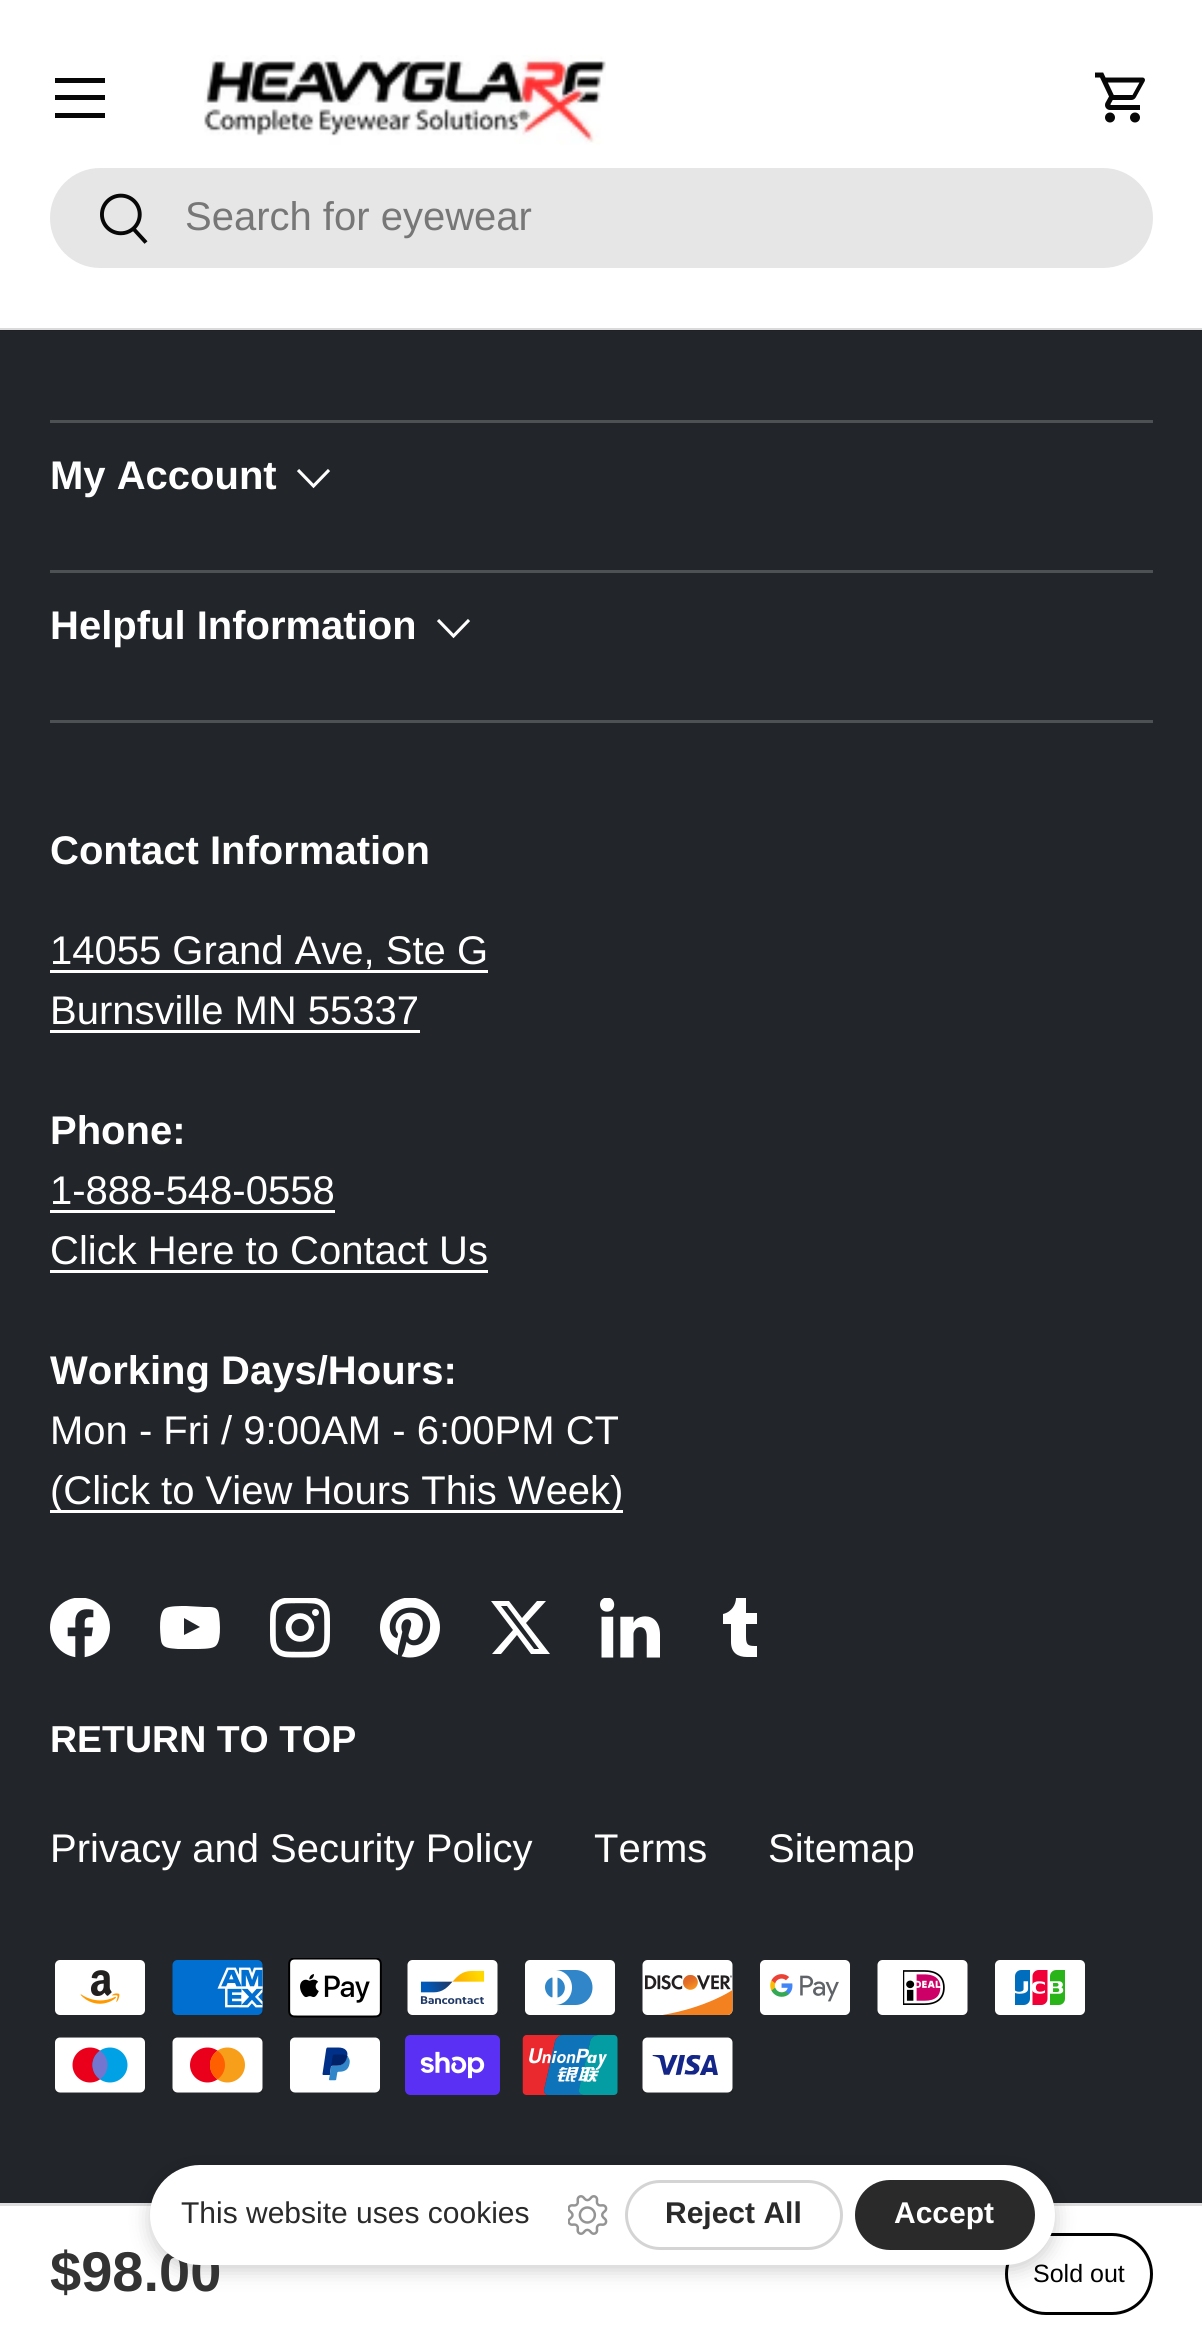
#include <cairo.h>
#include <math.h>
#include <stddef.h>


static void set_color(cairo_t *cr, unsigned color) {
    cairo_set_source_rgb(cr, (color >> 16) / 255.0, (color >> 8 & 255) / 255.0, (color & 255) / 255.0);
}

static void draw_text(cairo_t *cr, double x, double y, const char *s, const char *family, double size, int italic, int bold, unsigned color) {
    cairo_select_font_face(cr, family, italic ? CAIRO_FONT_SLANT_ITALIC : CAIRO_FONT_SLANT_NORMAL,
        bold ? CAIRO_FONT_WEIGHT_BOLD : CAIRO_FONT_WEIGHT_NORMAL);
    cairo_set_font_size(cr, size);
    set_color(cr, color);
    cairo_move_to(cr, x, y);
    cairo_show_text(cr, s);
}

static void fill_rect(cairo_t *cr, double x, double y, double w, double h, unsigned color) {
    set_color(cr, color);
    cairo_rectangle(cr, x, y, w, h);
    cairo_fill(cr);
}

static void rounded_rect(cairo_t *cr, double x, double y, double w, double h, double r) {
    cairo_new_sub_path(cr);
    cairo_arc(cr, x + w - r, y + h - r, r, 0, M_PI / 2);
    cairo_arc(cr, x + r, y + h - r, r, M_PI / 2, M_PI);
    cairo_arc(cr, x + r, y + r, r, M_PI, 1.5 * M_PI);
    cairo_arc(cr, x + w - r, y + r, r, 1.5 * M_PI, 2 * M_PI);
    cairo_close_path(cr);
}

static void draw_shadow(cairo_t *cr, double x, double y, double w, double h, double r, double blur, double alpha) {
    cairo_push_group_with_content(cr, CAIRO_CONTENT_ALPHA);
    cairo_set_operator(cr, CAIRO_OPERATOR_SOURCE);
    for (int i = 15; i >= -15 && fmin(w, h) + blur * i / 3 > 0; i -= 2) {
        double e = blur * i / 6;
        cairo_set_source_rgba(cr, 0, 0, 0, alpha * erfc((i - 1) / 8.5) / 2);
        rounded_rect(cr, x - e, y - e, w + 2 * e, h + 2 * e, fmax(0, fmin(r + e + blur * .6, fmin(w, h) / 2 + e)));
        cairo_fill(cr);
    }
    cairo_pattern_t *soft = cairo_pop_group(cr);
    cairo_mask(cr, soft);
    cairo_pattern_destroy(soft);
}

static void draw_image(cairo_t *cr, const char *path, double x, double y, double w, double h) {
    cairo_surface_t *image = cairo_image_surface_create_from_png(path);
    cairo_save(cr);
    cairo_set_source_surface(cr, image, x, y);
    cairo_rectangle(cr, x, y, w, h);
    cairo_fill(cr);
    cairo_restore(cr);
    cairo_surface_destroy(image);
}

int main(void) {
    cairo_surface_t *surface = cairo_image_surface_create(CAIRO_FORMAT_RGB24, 1202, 2339);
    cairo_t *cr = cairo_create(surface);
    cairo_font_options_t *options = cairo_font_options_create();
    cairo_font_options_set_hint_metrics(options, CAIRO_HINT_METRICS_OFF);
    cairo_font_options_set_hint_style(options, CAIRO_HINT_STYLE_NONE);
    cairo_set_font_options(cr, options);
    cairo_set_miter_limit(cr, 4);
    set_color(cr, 0x222529);
    cairo_paint(cr);
    fill_rect(cr, 0, 0, 1202, 330, 0xFFFFFF);
    cairo_set_source_rgba(cr, 0.027, 0.027, 0.027, 0.15);
    cairo_rectangle(cr, 0, 328, 1202, 3);
    cairo_fill(cr);
    fill_rect(cr, 55, 78, 50, 5, 0x070707);
    fill_rect(cr, 55, 113, 50, 5, 0x070707);
    fill_rect(cr, 55, 95, 50, 5, 0x070707);
    draw_image(cr, "assets/img1.png", 204, 55, 402, 90);
    draw_image(cr, "assets/img2.png", 1095, 72, 50, 51);
    set_color(cr, 0xE6E6E6);
    rounded_rect(cr, 50, 168, 1103, 100, 50);
    cairo_fill(cr);
    draw_image(cr, "assets/img3.png", 100, 193, 48, 51);
    draw_text(cr, 185, 230, "Search for eyewear", "Liberation Sans", 40, 0, 0, 0x777777);
    fill_rect(cr, 50, 420, 1103, 3, 0x4E5154);
    fill_rect(cr, 50, 570, 1103, 3, 0x4E5154);
    draw_text(cr, 50, 489, "My Account", "Liberation Sans", 40, 0, 1, 0xFFFFFF);
    cairo_new_path(cr);
    cairo_move_to(cr, 329, 470);
    cairo_line_to(cr, 313.5, 486);
    cairo_line_to(cr, 298, 470);
    cairo_set_line_width(cr, 3.1);
    cairo_stroke(cr);
    fill_rect(cr, 50, 720, 1103, 3, 0x4E5154);
    draw_text(cr, 50, 639, "Helpful Information", "Liberation Sans", 40, 0, 1, 0xFFFFFF);
    cairo_new_path(cr);
    cairo_move_to(cr, 469, 620);
    cairo_line_to(cr, 453.5, 636);
    cairo_line_to(cr, 438, 620);
    cairo_stroke(cr);
    draw_text(cr, 50, 864, "Contact Information", "Liberation Sans", 40, 0, 1, 0xFFFFFF);
    draw_text(cr, 50, 964, "14055 Grand Ave, Ste G", "Liberation Sans", 40, 0, 0, 0xFFFFFF);
    fill_rect(cr, 50, 970, 438, 3, 0xFFFFFF);
    draw_text(cr, 50, 1024, "Burnsville MN 55337", "Liberation Sans", 40, 0, 0, 0xFFFFFF);
    fill_rect(cr, 50, 1030, 370, 3, 0xFFFFFF);
    draw_text(cr, 50, 1144, "Phone:", "Liberation Sans", 40, 0, 1, 0xFFFFFF);
    draw_text(cr, 50, 1204, "1-888-548-0558", "Liberation Sans", 40, 0, 0, 0xFFFFFF);
    fill_rect(cr, 50, 1210, 285, 3, 0xFFFFFF);
    draw_text(cr, 50, 1264, "Click Here to Contact Us", "Liberation Sans", 40, 0, 0, 0xFFFFFF);
    fill_rect(cr, 50, 1270, 438, 3, 0xFFFFFF);
    draw_text(cr, 50, 1384, "Working Days/Hours:", "Liberation Sans", 40, 0, 1, 0xFFFFFF);
    draw_text(cr, 50, 1444, "Mon - Fri / 9:00AM - 6:00PM CT", "Liberation Sans", 40, 0, 0, 0xFFFFFF);
    fill_rect(cr, 50, 1510, 573, 3, 0xFFFFFF);
    draw_text(cr, 50, 1504, "(Click to View Hours This Week)", "Liberation Sans", 40, 0, 0, 0xFFFFFF);
    draw_image(cr, "assets/img4.png", 50, 1598, 60, 60);
    cairo_new_path(cr);
    cairo_move_to(cr, 184, 1635);
    cairo_line_to(cr, 184, 1618);
    cairo_line_to(cr, 200, 1627);
    cairo_close_path(cr);
    cairo_move_to(cr, 219, 1615);
    cairo_curve_to(cr, 218, 1606, 212, 1607, 204, 1607);
    cairo_line_to(cr, 186, 1606);
    cairo_curve_to(cr, 180, 1606, 170, 1606, 166, 1608);
    cairo_curve_to(cr, 158, 1611, 160, 1633, 161, 1640);
    cairo_curve_to(cr, 162, 1649, 170, 1648, 178, 1649);
    cairo_line_to(cr, 194, 1649);
    cairo_curve_to(cr, 200, 1649, 210, 1649, 214, 1647);
    cairo_curve_to(cr, 222, 1644, 220, 1622, 219, 1615);
    cairo_close_path(cr);
    cairo_fill(cr);
    draw_image(cr, "assets/img5.png", 270, 1598, 60, 60);
    draw_image(cr, "assets/img6.png", 380, 1598, 60, 60);
    cairo_new_path(cr);
    cairo_move_to(cr, 537, 1601);
    cairo_line_to(cr, 546, 1601);
    cairo_line_to(cr, 526, 1623);
    cairo_line_to(cr, 550, 1654);
    cairo_line_to(cr, 531, 1654);
    cairo_line_to(cr, 517, 1635);
    cairo_line_to(cr, 501, 1654);
    cairo_line_to(cr, 492, 1654);
    cairo_line_to(cr, 513, 1630);
    cairo_line_to(cr, 491, 1601);
    cairo_line_to(cr, 509, 1601);
    cairo_line_to(cr, 522, 1618);
    cairo_close_path(cr);
    cairo_move_to(cr, 534, 1649);
    cairo_line_to(cr, 539, 1649);
    cairo_line_to(cr, 507, 1606);
    cairo_line_to(cr, 501, 1606);
    cairo_close_path(cr);
    cairo_fill(cr);
    draw_image(cr, "assets/img7.png", 600, 1598, 60, 60);
    cairo_new_path(cr);
    cairo_move_to(cr, 757, 1657);
    cairo_line_to(cr, 747, 1657);
    cairo_curve_to(cr, 738, 1657, 731, 1653, 731, 1642);
    cairo_line_to(cr, 731, 1624);
    cairo_line_to(cr, 723, 1624);
    cairo_line_to(cr, 723, 1614);
    cairo_curve_to(cr, 732, 1612, 736, 1604, 736, 1598);
    cairo_line_to(cr, 746, 1598);
    cairo_line_to(cr, 746, 1613);
    cairo_line_to(cr, 757, 1613);
    cairo_line_to(cr, 757, 1624);
    cairo_line_to(cr, 746, 1624);
    cairo_line_to(cr, 746, 1637);
    cairo_curve_to(cr, 746, 1646, 749, 1646, 757, 1646);
    cairo_close_path(cr);
    cairo_fill(cr);
    draw_text(cr, 50, 1752, "RETURN TO TOP", "Liberation Sans", 37.5, 0, 1, 0xFFFFFF);
    draw_text(cr, 50, 1862, "Privacy and Security Policy", "Liberation Sans", 40, 0, 0, 0xFFFFFF);
    draw_text(cr, 594, 1862, "Terms", "Liberation Sans", 40, 0, 0, 0xFFFFFF);
    draw_text(cr, 768, 1862, "Sitemap", "Liberation Sans", 40, 0, 0, 0xFFFFFF);
    draw_image(cr, "assets/img8.png", 55, 1960, 90, 55);
    draw_image(cr, "assets/img9.png", 172, 1960, 91, 55);
    draw_image(cr, "assets/img10.png", 288, 1958, 94, 60);
    draw_image(cr, "assets/img11.png", 407, 1960, 91, 55);
    draw_image(cr, "assets/img12.png", 525, 1960, 90, 55);
    draw_image(cr, "assets/img13.png", 642, 1960, 91, 55);
    draw_image(cr, "assets/img14.png", 760, 1960, 90, 55);
    draw_image(cr, "assets/img15.png", 877, 1960, 91, 55);
    draw_image(cr, "assets/img16.png", 995, 1960, 90, 55);
    draw_image(cr, "assets/img17.png", 55, 2037, 90, 56);
    draw_image(cr, "assets/img18.png", 172, 2037, 91, 56);
    draw_image(cr, "assets/img19.png", 290, 2037, 90, 56);
    draw_image(cr, "assets/img20.png", 405, 2035, 95, 60);
    draw_image(cr, "assets/img21.png", 522, 2035, 96, 60);
    draw_image(cr, "assets/img22.png", 642, 2037, 91, 56);
    fill_rect(cr, 0, 2206, 1202, 133, 0xFFFFFF);
    fill_rect(cr, 0, 2203, 1202, 3, 0xDDDDDD);
    rounded_rect(cr, 1006.5, 2234.5, 145, 79, 39.5);
    set_color(cr, 0x000000);
    cairo_set_line_width(cr, 3);
    cairo_stroke(cr);
    set_color(cr, 0x000000);
    draw_shadow(cr, 150, 2170, 905, 100, 50, 10, 0.2);
    draw_text(cr, 50, 2291, "$98.00", "Liberation Sans", 56, 0, 1, 0x333333);
    draw_text(cr, 1033, 2282, "Sold out", "Liberation Sans", 25, 0, 0, 0x000000);
    set_color(cr, 0xFFFFFF);
    rounded_rect(cr, 150, 2165, 905, 100, 50);
    cairo_fill(cr);
    draw_text(cr, 181, 2223, "This website uses cookies", "Liberation Sans", 30, 0, 0, 0x2A2A2A);
    draw_image(cr, "assets/img23.png", 568, 2195, 40, 40);
    rounded_rect(cr, 626.5, 2181.5, 215, 67, 33.5);
    set_color(cr, 0xD4D4D4);
    cairo_stroke(cr);
    draw_text(cr, 665, 2223, "Reject All", "Liberation Sans", 30, 0, 1, 0x2A2A2A);
    rounded_rect(cr, 855, 2180, 180, 70, 35);
    cairo_fill(cr);
    draw_text(cr, 894, 2223, "Accept", "Liberation Sans", 30, 0, 1, 0xFFFFFF);
    cairo_surface_write_to_png(surface, "output.png");
    cairo_font_options_destroy(options);
    cairo_destroy(cr);
    cairo_surface_destroy(surface);
    return 0;
}
